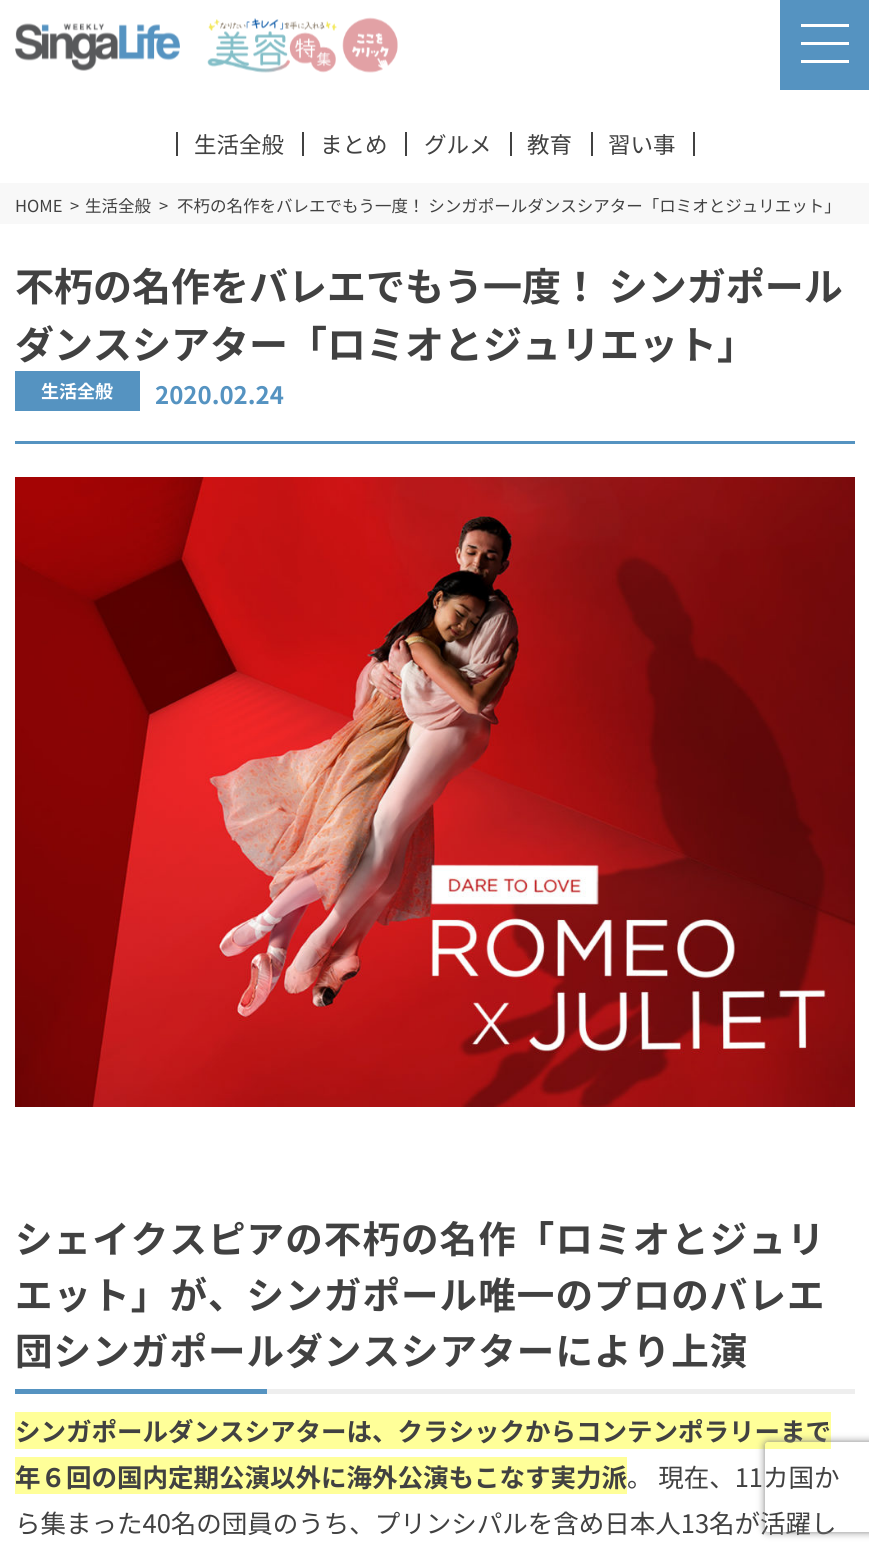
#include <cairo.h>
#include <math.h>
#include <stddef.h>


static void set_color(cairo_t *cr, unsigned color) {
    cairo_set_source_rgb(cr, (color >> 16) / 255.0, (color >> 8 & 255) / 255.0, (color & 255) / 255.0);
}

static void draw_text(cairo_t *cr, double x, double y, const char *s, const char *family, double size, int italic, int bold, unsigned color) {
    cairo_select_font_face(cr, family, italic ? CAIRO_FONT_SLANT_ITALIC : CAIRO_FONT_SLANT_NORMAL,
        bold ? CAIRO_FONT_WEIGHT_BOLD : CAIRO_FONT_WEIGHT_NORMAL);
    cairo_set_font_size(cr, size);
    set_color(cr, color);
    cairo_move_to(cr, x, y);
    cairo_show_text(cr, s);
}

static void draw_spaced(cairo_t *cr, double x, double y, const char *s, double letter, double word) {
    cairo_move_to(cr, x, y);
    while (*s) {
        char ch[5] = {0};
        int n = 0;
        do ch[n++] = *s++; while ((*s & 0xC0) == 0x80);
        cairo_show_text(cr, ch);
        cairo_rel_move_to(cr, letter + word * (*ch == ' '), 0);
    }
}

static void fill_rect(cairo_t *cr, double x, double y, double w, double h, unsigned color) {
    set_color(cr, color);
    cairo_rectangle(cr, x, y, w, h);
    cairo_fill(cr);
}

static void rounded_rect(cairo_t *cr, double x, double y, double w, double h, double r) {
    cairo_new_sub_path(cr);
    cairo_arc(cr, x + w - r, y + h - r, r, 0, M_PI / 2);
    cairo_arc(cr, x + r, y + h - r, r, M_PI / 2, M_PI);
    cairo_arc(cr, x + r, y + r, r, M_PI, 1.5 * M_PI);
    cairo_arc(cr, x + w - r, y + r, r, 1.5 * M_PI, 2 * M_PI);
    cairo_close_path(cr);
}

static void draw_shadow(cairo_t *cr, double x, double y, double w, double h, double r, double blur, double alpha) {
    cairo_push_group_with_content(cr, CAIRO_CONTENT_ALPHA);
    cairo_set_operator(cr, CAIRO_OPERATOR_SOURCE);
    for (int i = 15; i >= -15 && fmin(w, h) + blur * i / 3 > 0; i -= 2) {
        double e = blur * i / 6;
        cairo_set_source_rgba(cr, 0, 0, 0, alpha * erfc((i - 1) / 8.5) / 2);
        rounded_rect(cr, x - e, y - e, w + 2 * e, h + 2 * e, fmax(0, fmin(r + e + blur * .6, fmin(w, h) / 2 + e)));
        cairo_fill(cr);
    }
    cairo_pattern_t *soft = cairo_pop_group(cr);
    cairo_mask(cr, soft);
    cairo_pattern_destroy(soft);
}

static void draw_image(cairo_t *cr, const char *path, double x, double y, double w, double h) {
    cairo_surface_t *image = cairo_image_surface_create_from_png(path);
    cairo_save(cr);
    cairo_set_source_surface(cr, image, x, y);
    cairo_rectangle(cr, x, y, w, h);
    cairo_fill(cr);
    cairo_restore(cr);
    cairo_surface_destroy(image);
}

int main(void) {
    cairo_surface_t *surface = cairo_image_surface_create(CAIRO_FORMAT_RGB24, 869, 1552);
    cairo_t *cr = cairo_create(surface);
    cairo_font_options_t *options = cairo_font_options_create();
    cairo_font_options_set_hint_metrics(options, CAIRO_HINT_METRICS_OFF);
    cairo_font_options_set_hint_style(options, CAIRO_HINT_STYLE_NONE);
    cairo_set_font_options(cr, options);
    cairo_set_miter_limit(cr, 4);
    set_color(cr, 0xFFFFFF);
    cairo_paint(cr);
    draw_image(cr, "assets/img1.png", 15, 23, 165, 48);
    draw_image(cr, "assets/img2.png", 207, 17, 191, 56);
    fill_rect(cr, 780, 0, 89, 90, 0x5593C1);
    fill_rect(cr, 801, 24, 48, 3, 0xFFFFFF);
    fill_rect(cr, 801, 42, 48, 3, 0xFFFFFF);
    fill_rect(cr, 801, 60, 48, 3, 0xFFFFFF);
    fill_rect(cr, 176, 132, 2, 24, 0x414141);
    draw_text(cr, 194, 153, "生活全般", "Noto Sans JP", 22.5, 0, 0, 0x414141);
    fill_rect(cr, 302, 132, 2, 24, 0x414141);
    draw_text(cr, 320, 153, "まとめ", "Noto Sans JP", 22.5, 0, 0, 0x414141);
    fill_rect(cr, 405, 132, 2, 24, 0x414141);
    draw_text(cr, 424, 153, "グルメ", "Noto Sans JP", 22.5, 0, 0, 0x414141);
    fill_rect(cr, 510, 132, 2, 24, 0x414141);
    draw_text(cr, 527, 153, "教育", "Noto Sans JP", 22.5, 0, 0, 0x414141);
    fill_rect(cr, 591, 132, 2, 24, 0x414141);
    draw_text(cr, 608, 153, "習い事", "Noto Sans JP", 22.5, 0, 0, 0x414141);
    fill_rect(cr, 693, 132, 2, 24, 0x414141);
    fill_rect(cr, 0, 183, 869, 41, 0xF8F8F8);
    draw_text(cr, 15, 212, "HOME", "Noto Sans JP", 16.5, 0, 0, 0x414141);
    draw_text(cr, 70, 212, ">", "Noto Sans JP", 16.5, 0, 0, 0x414141);
    draw_text(cr, 85, 212, "生活全般", "Noto Sans JP", 16.5, 0, 0, 0x414141);
    draw_text(cr, 159, 212, ">", "Noto Sans JP", 16.5, 0, 0, 0x414141);
    draw_text(cr, 177, 212, "不朽の名作をバレエでもう一度！ シンガポールダンスシアター「ロミオとジュリエット」", "Noto Sans JP", 16.5, 0, 0, 0x414141);
    fill_rect(cr, 15, 441, 840, 3, 0x5593C1);
    draw_text(cr, 15, 301, "不朽の名作をバレエでもう一度！ シンガポール", "Noto Sans JP", 39, 0, 1, 0x414141);
    draw_text(cr, 15, 359, "ダンスシアター「ロミオとジュリエット」", "Noto Sans JP", 39, 0, 1, 0x414141);
    fill_rect(cr, 15, 371, 125, 40, 0x5593C1);
    draw_text(cr, 41, 398, "生活全般", "Noto Sans JP", 18, 0, 1, 0xFFFFFF);
    draw_text(cr, 155, 404, "2020.02.24", "Noto Sans JP", 24, 0, 1, 0x5593C1);
    draw_image(cr, "assets/img3.png", 15, 477, 840, 630);
    fill_rect(cr, 267, 1389, 588, 5, 0xEEEEEE);
    cairo_set_font_size(cr, 37.5);
    set_color(cr, 0x414141);
    draw_spaced(cr, 15, 1253, "シェイクスピアの不朽の名作「ロミオとジュリ", 1.1, 0);
    draw_spaced(cr, 15, 1309, "エット」が、シンガポール唯一のプロのバレエ", 1.1, 0);
    draw_spaced(cr, 15, 1365, "団シンガポールダンスシアターにより上演", 1.1, 0);
    fill_rect(cr, 15, 1389, 252, 5, 0x5593C1);
    fill_rect(cr, 15, 1412, 816, 37, 0xFFFF99);
    draw_text(cr, 15, 1441, "シンガポールダンスシアターは、クラシックからコンテンポラリーまで", "Noto Sans JP", 25.5, 0, 1, 0x414141);
    fill_rect(cr, 15, 1457, 612, 37, 0xFFFF99);
    draw_text(cr, 15, 1487, "年６回の国内定期公演以外に海外公演もこなす実力派", "Noto Sans JP", 25.5, 0, 1, 0x414141);
    draw_text(cr, 627, 1487, "。 現在、11カ国か", "Noto Sans JP", 25.5, 0, 0, 0x414141);
    draw_text(cr, 15, 1533, "ら集まった40名の団員のうち、プリンシパルを含め日本人13名が活躍し", "Noto Sans JP", 25.5, 0, 0, 0x414141);
    cairo_save(cr);
    cairo_set_fill_rule(cr, CAIRO_FILL_RULE_EVEN_ODD);
    cairo_new_path(cr);
    cairo_move_to(cr, 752, 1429);
    cairo_line_to(cr, 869, 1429);
    cairo_line_to(cr, 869, 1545);
    cairo_line_to(cr, 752, 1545);
    cairo_close_path(cr);
    cairo_move_to(cr, 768, 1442);
    cairo_line_to(cr, 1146, 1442);
    cairo_curve_to(cr, 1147.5, 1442, 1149, 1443.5, 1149, 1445);
    cairo_line_to(cr, 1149, 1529);
    cairo_curve_to(cr, 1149, 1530.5, 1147.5, 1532, 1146, 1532);
    cairo_line_to(cr, 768, 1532);
    cairo_curve_to(cr, 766.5, 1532, 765, 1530.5, 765, 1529);
    cairo_line_to(cr, 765, 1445);
    cairo_curve_to(cr, 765, 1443.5, 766.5, 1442, 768, 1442);
    cairo_close_path(cr);
    cairo_clip(cr);
    set_color(cr, 0x808080);
    draw_shadow(cr, 765, 1442, 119, 90, 3, 4, 1);
    cairo_restore(cr);
    cairo_surface_write_to_png(surface, "output.png");
    cairo_font_options_destroy(options);
    cairo_destroy(cr);
    cairo_surface_destroy(surface);
    return 0;
}
